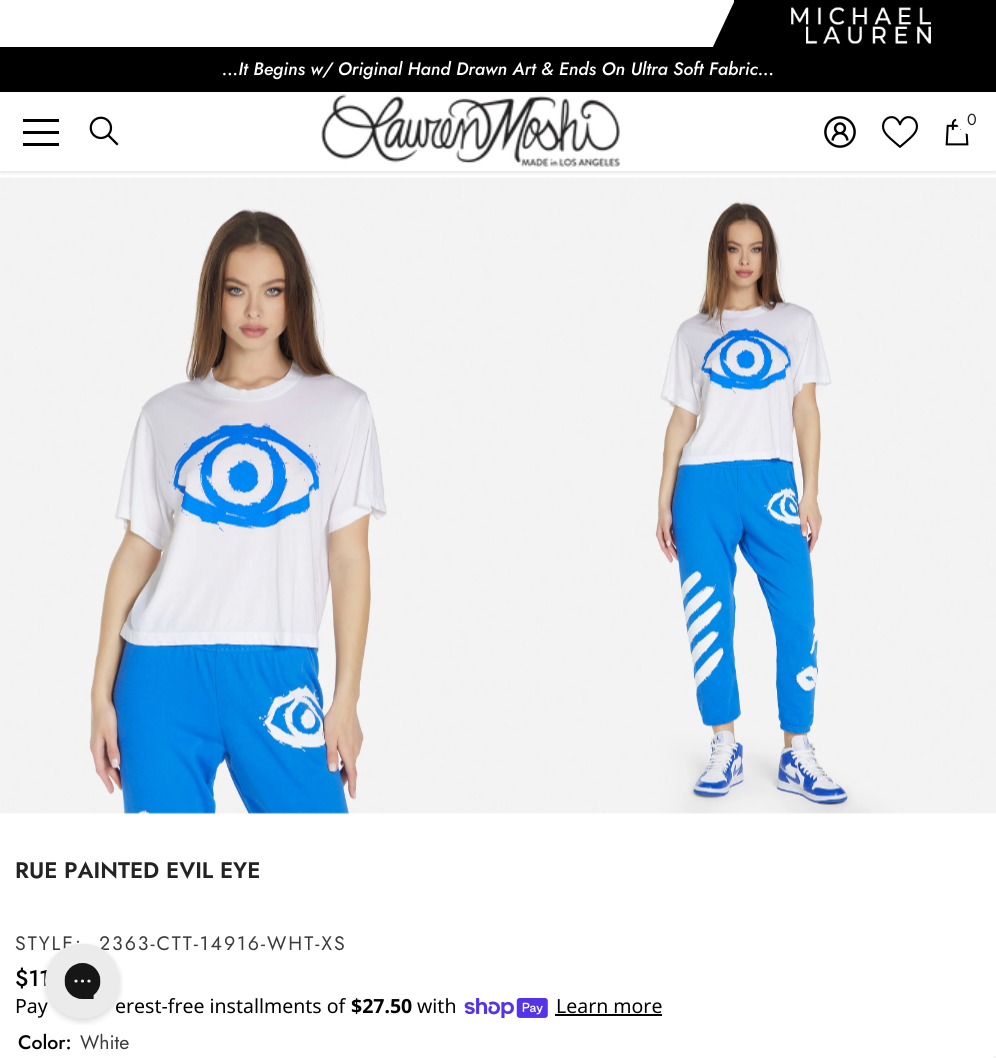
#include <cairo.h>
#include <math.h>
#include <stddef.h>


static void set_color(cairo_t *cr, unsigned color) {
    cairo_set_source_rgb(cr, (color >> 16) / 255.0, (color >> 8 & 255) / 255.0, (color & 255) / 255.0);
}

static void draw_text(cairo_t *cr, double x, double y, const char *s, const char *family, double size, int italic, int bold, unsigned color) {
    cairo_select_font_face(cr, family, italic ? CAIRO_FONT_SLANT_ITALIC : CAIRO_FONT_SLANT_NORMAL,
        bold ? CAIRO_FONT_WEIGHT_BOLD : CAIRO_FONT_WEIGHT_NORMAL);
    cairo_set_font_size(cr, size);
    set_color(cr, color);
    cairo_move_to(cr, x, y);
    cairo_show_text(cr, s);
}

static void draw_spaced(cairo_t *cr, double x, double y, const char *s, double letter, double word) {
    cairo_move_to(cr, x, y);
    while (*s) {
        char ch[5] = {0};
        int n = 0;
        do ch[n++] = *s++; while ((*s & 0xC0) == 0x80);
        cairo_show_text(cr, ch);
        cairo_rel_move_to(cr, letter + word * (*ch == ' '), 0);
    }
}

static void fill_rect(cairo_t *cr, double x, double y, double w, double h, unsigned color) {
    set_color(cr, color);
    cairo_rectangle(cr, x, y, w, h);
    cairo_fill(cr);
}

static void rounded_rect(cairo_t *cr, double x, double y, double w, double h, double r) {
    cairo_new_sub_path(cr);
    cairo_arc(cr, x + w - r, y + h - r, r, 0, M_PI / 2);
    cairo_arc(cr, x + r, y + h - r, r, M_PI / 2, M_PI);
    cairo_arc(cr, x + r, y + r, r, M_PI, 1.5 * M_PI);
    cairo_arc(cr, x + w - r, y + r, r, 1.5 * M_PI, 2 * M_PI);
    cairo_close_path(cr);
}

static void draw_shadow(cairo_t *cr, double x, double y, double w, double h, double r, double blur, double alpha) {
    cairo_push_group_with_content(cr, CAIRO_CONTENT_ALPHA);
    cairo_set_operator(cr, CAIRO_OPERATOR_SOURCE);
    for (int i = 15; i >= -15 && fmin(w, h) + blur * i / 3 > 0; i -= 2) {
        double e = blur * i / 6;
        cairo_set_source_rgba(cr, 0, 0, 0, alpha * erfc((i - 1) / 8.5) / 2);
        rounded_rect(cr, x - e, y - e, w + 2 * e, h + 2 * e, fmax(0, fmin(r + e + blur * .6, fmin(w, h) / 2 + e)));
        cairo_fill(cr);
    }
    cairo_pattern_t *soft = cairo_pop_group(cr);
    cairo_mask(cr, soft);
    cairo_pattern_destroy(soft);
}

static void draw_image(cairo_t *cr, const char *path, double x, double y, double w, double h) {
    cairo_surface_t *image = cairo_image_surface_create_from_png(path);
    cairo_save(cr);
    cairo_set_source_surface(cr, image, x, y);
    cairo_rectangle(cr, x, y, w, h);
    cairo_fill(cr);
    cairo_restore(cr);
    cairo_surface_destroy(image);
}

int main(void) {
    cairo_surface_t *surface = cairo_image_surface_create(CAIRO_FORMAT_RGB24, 996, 1058);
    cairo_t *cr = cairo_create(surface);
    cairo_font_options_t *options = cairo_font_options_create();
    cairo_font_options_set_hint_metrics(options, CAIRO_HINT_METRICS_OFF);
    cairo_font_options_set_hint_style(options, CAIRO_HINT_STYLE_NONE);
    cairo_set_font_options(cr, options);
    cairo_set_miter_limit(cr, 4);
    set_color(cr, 0xFFFFFF);
    cairo_paint(cr);
    fill_rect(cr, 734, 0, 262, 47, 0x000000);
    fill_rect(cr, 0, 47, 996, 45, 0x000000);
    cairo_new_path(cr);
    cairo_move_to(cr, 735, 0);
    cairo_line_to(cr, 780, 0);
    cairo_line_to(cr, 756, 51);
    cairo_line_to(cr, 711, 51);
    cairo_close_path(cr);
    cairo_fill(cr);
    draw_image(cr, "assets/img1.png", 791, 7, 140, 37);
    draw_text(cr, 222, 75, "...It Begins w/ Original Hand Drawn Art & Ends On Ultra Soft Fabric...", "Jost Medium", 18, 1, 0, 0xFFFFFF);
    draw_image(cr, "assets/img7.png", 0, 177, 498, 637);
    draw_image(cr, "assets/img8.png", 498, 177, 498, 637);
    cairo_save(cr);
    cairo_rectangle(cr, 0, 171, 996, 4);
    cairo_clip(cr);
    set_color(cr, 0x000000);
    draw_shadow(cr, 0, 93, 996, 80, 0, 2, 0.1);
    cairo_restore(cr);
    fill_rect(cr, 23, 131, 36, 3, 0x000000);
    fill_rect(cr, 23, 119, 36, 3, 0x000000);
    fill_rect(cr, 23, 143, 36, 3, 0x000000);
    draw_image(cr, "assets/img2.png", 89, 116, 30, 30);
    draw_image(cr, "assets/img3.png", 321, 94, 299, 73);
    draw_image(cr, "assets/img4.png", 824, 116, 32, 32);
    draw_image(cr, "assets/img5.png", 882, 116, 36, 32);
    draw_image(cr, "assets/img6.png", 945, 118, 24, 28);
    set_color(cr, 0xFFFFFF);
    cairo_arc(cr, 973, 118, 17, 0, 2 * M_PI);
    cairo_fill(cr);
    cairo_select_font_face(cr, "Jost", CAIRO_FONT_SLANT_NORMAL, CAIRO_FONT_WEIGHT_NORMAL);
    cairo_set_font_size(cr, 16);
    set_color(cr, 0x232323);
    draw_spaced(cr, 967, 125, "0", 1.95, 0);
    draw_text(cr, 15, 878, "RUE PAINTED EVIL EYE", "Jost SemiBold", 22.5, 0, 0, 0x232323);
    cairo_select_font_face(cr, "Jost", CAIRO_FONT_SLANT_NORMAL, CAIRO_FONT_WEIGHT_NORMAL);
    cairo_set_font_size(cr, 19.5);
    set_color(cr, 0x3C3C3C);
    draw_spaced(cr, 15, 950, "STYLE:", 1.95, 0);
    draw_spaced(cr, 99, 950, "2363-CTT-14916-WHT-XS", 1.95, 0);
    draw_text(cr, 15, 986, "$11", "Jost Medium", 22.5, 0, 0, 0x010101);
    draw_text(cr, 15, 1013, "Pay", "Noto Sans", 19.5, 0, 0, 0x010101);
    draw_text(cr, 115, 1013, "erest-free installments of", "Noto Sans", 19.5, 0, 0, 0x010101);
    draw_text(cr, 351, 1013, "$27.50", "Noto Sans", 19.5, 0, 1, 0x010101);
    draw_text(cr, 417, 1013, "with", "Noto Sans", 19.5, 0, 0, 0x010101);
    draw_image(cr, "assets/img9.png", 464, 998, 84, 21);
    draw_text(cr, 556, 1013, "Learn more", "Noto Sans", 19.5, 0, 0, 0x010101);
    fill_rect(cr, 555, 1014, 107, 2, 0x000000);
    draw_text(cr, 18, 1049, "Color:", "Jost Medium", 19.5, 0, 0, 0x010101);
    draw_text(cr, 80, 1049, "White", "Jost", 19.5, 0, 0, 0x3C3C3C);
    draw_image(cr, "assets/img10.png", 42, 943, 81, 82);
    fill_rect(cr, 993, 1056, 3, 2, 0xF5F5F5);
    cairo_surface_write_to_png(surface, "output.png");
    cairo_font_options_destroy(options);
    cairo_destroy(cr);
    cairo_surface_destroy(surface);
    return 0;
}
